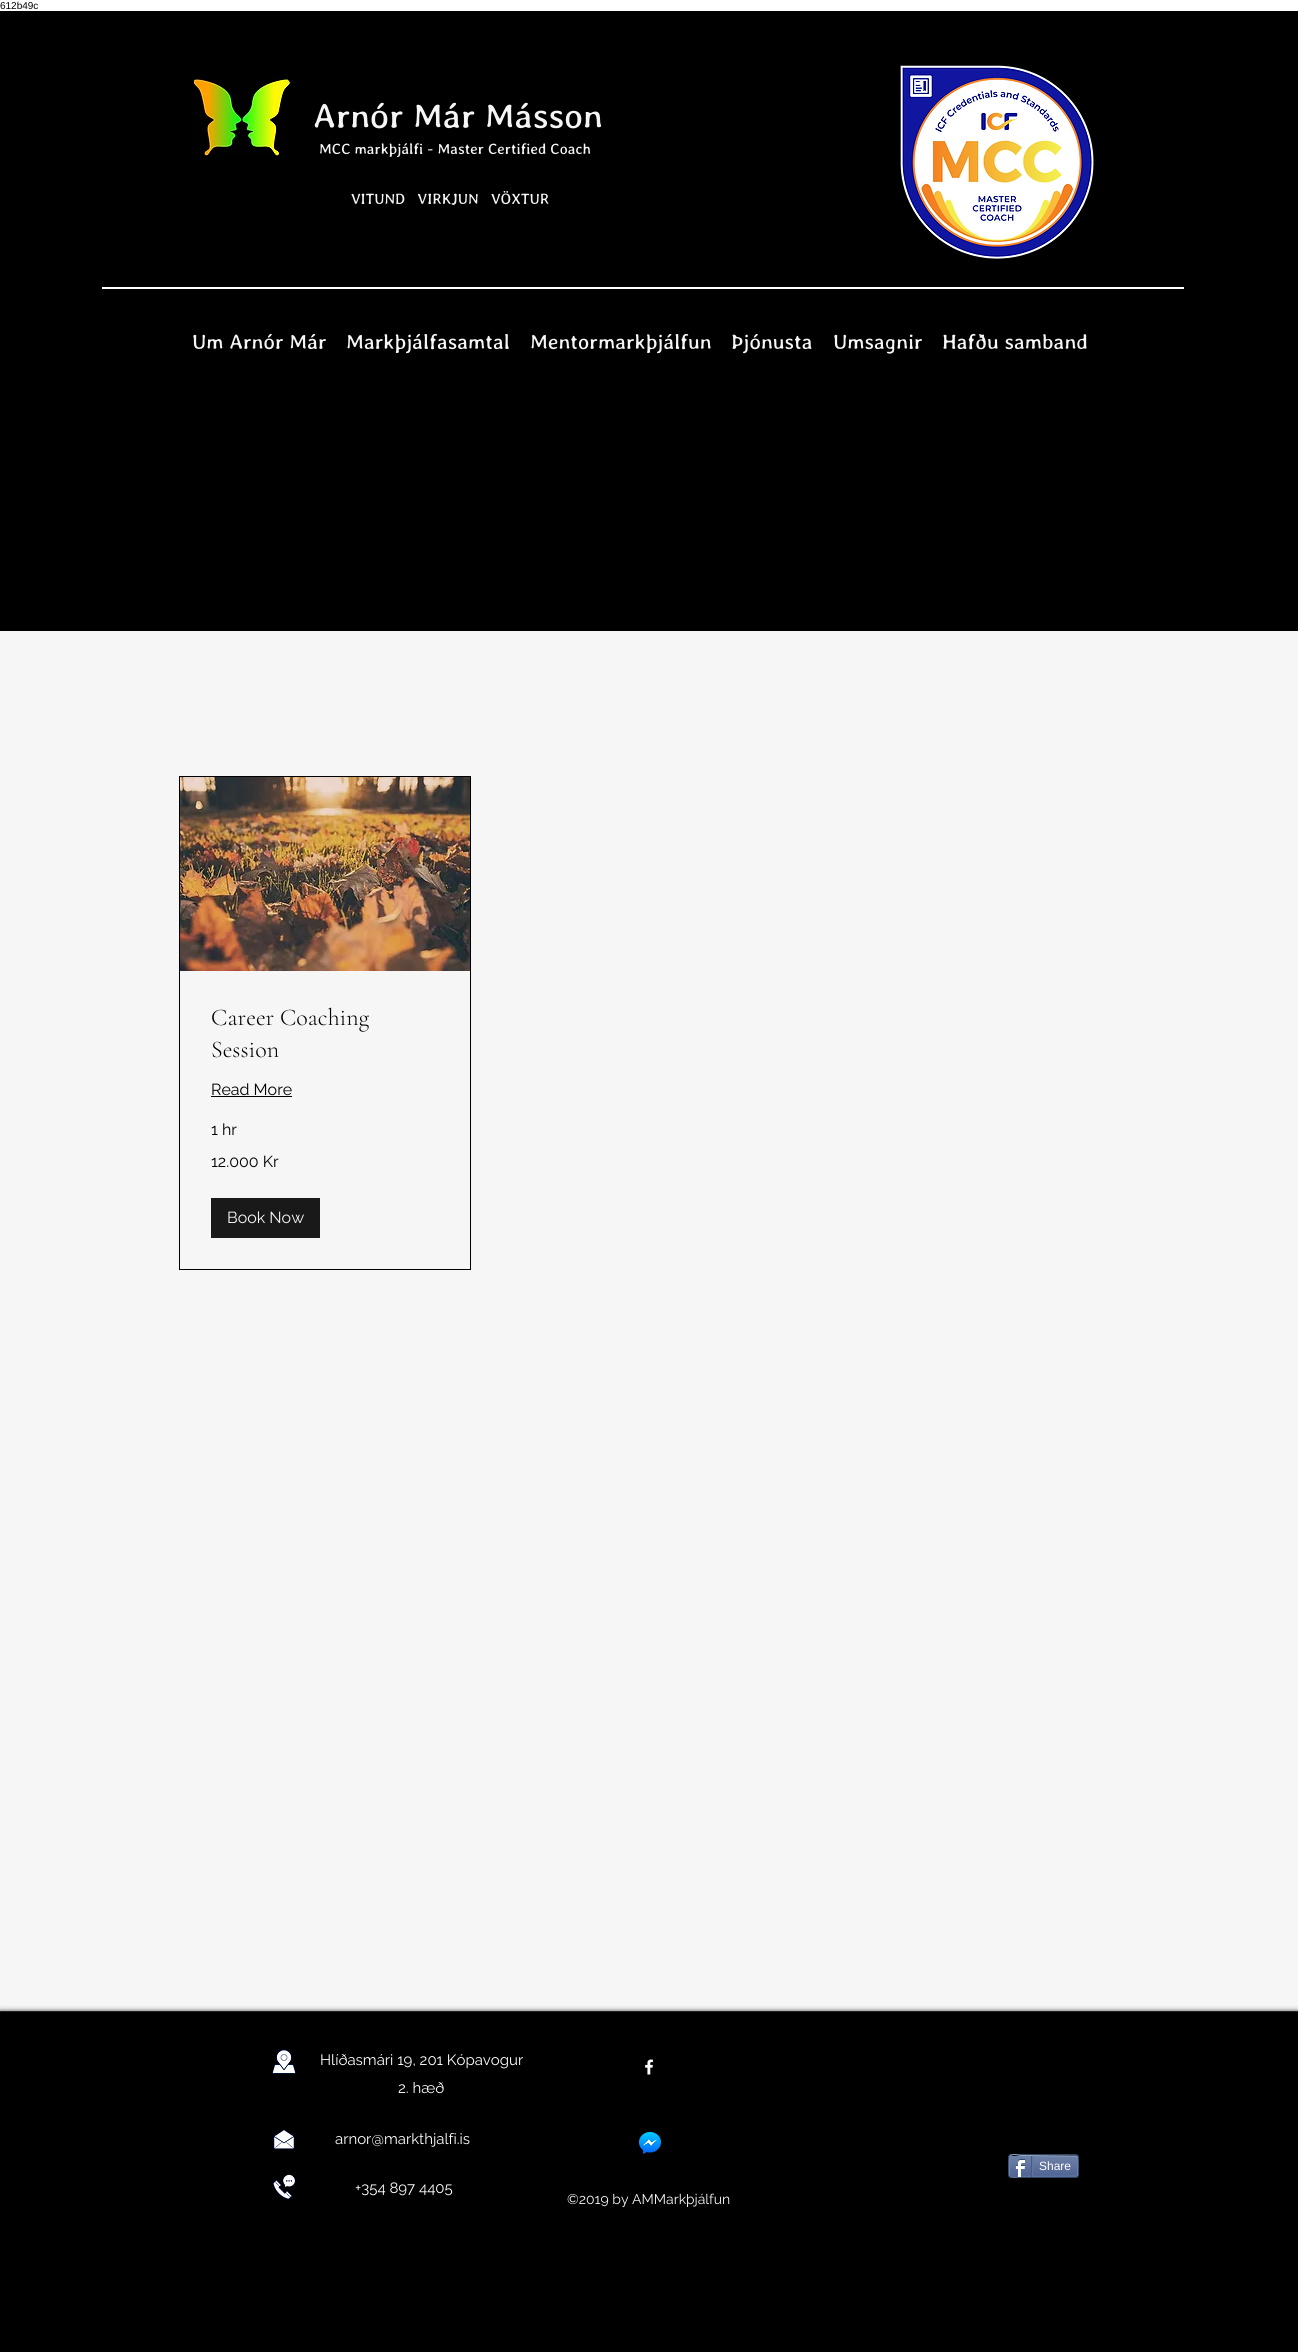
#include <cairo.h>
#include <math.h>
#include <stddef.h>


static void set_color(cairo_t *cr, unsigned color) {
    cairo_set_source_rgb(cr, (color >> 16) / 255.0, (color >> 8 & 255) / 255.0, (color & 255) / 255.0);
}

static void draw_text(cairo_t *cr, double x, double y, const char *s, const char *family, double size, int italic, int bold, unsigned color) {
    cairo_select_font_face(cr, family, italic ? CAIRO_FONT_SLANT_ITALIC : CAIRO_FONT_SLANT_NORMAL,
        bold ? CAIRO_FONT_WEIGHT_BOLD : CAIRO_FONT_WEIGHT_NORMAL);
    cairo_set_font_size(cr, size);
    set_color(cr, color);
    cairo_move_to(cr, x, y);
    cairo_show_text(cr, s);
}

static void fill_rect(cairo_t *cr, double x, double y, double w, double h, unsigned color) {
    set_color(cr, color);
    cairo_rectangle(cr, x, y, w, h);
    cairo_fill(cr);
}

static void rounded_rect(cairo_t *cr, double x, double y, double w, double h, double r) {
    cairo_new_sub_path(cr);
    cairo_arc(cr, x + w - r, y + h - r, r, 0, M_PI / 2);
    cairo_arc(cr, x + r, y + h - r, r, M_PI / 2, M_PI);
    cairo_arc(cr, x + r, y + r, r, M_PI, 1.5 * M_PI);
    cairo_arc(cr, x + w - r, y + r, r, 1.5 * M_PI, 2 * M_PI);
    cairo_close_path(cr);
}

static void draw_shadow(cairo_t *cr, double x, double y, double w, double h, double r, double blur, double alpha) {
    cairo_push_group_with_content(cr, CAIRO_CONTENT_ALPHA);
    cairo_set_operator(cr, CAIRO_OPERATOR_SOURCE);
    for (int i = 15; i >= -15 && fmin(w, h) + blur * i / 3 > 0; i -= 2) {
        double e = blur * i / 6;
        cairo_set_source_rgba(cr, 0, 0, 0, alpha * erfc((i - 1) / 8.5) / 2);
        rounded_rect(cr, x - e, y - e, w + 2 * e, h + 2 * e, fmax(0, fmin(r + e + blur * .6, fmin(w, h) / 2 + e)));
        cairo_fill(cr);
    }
    cairo_pattern_t *soft = cairo_pop_group(cr);
    cairo_mask(cr, soft);
    cairo_pattern_destroy(soft);
}

static void draw_image(cairo_t *cr, const char *path, double x, double y, double w, double h) {
    cairo_surface_t *image = cairo_image_surface_create_from_png(path);
    cairo_save(cr);
    cairo_set_source_surface(cr, image, x, y);
    cairo_rectangle(cr, x, y, w, h);
    cairo_fill(cr);
    cairo_restore(cr);
    cairo_surface_destroy(image);
}

int main(void) {
    cairo_surface_t *surface = cairo_image_surface_create(CAIRO_FORMAT_RGB24, 1298, 2352);
    cairo_t *cr = cairo_create(surface);
    cairo_font_options_t *options = cairo_font_options_create();
    cairo_font_options_set_hint_metrics(options, CAIRO_HINT_METRICS_OFF);
    cairo_font_options_set_hint_style(options, CAIRO_HINT_STYLE_NONE);
    cairo_set_font_options(cr, options);
    cairo_set_miter_limit(cr, 4);
    set_color(cr, 0xFFFFFF);
    cairo_paint(cr);
    draw_text(cr, 0, 9, "612b49c", "Liberation Sans", 10, 0, 0, 0x000000);
    fill_rect(cr, 0, 11, 1298, 2341, 0x000000);
    draw_image(cr, "assets/img1.png", 193, 79, 97, 77);
    draw_text(cr, 313, 128, "Arnór Már Másson", "Averia Libre", 35, 0, 0, 0xF6F6F6);
    draw_image(cr, "assets/img2.png", 900, 65, 196, 194);
    draw_text(cr, 319, 154, "MCC markþjálfi - Master Certified Coach", "Averia Libre", 15, 0, 0, 0xF6F6F6);
    draw_text(cr, 351, 204, "VITUND   VIRKJUN   VÖXTUR", "Averia Libre", 15, 0, 0, 0xF6F6F6);
    fill_rect(cr, 102, 287, 1082, 2, 0xFFFFFF);
    draw_text(cr, 192, 349, "Um Arnór Már", "Averia Libre", 21, 0, 0, 0xF6F6F6);
    draw_text(cr, 346, 349, "Markþjálfasamtal", "Averia Libre", 21, 0, 0, 0xF6F6F6);
    draw_text(cr, 530, 349, "Mentormarkþjálfun", "Averia Libre", 21, 0, 0, 0xF6F6F6);
    draw_text(cr, 731, 349, "Þjónusta", "Averia Libre", 21, 0, 0, 0xF6F6F6);
    draw_text(cr, 833, 349, "Umsagnir", "Averia Libre", 21, 0, 0, 0xF6F6F6);
    draw_text(cr, 942, 349, "Hafðu samband", "Averia Libre", 21, 0, 0, 0xF6F6F6);
    fill_rect(cr, 0, 631, 1298, 1380, 0xF6F6F6);
    cairo_rectangle(cr, 179.5, 776.5, 291, 493);
    set_color(cr, 0x000000);
    cairo_set_line_width(cr, 1);
    cairo_stroke(cr);
    draw_image(cr, "assets/img3.png", 180, 777, 290, 194);
    draw_text(cr, 211, 1025, "Career Coaching", "Cormorant Garamond Light", 24, 0, 0, 0x000000);
    draw_text(cr, 211, 1057, "Session", "Cormorant Garamond Light", 24, 0, 0, 0x000000);
    draw_text(cr, 211, 1095, "Read More", "Raleway", 16, 0, 0, 0x000000);
    fill_rect(cr, 211, 1096, 81, 1, 0x000000);
    draw_text(cr, 211, 1135, "1 hr", "Raleway", 16, 0, 0, 0x000000);
    draw_text(cr, 211, 1167, "12.000 Kr", "Raleway", 16, 0, 0, 0x000000);
    fill_rect(cr, 211, 1198, 109, 40, 0x191919);
    draw_text(cr, 227, 1223, "Book Now", "Raleway", 16, 0, 0, 0xF6F6F6);
    cairo_save(cr);
    cairo_set_fill_rule(cr, CAIRO_FILL_RULE_EVEN_ODD);
    cairo_new_path(cr);
    cairo_move_to(cr, 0, 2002);
    cairo_line_to(cr, 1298, 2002);
    cairo_line_to(cr, 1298, 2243);
    cairo_line_to(cr, 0, 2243);
    cairo_close_path(cr);
    cairo_move_to(cr, 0, 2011);
    cairo_line_to(cr, 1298, 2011);
    cairo_line_to(cr, 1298, 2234);
    cairo_line_to(cr, 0, 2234);
    cairo_close_path(cr);
    cairo_clip(cr);
    set_color(cr, 0x000000);
    draw_shadow(cr, 0, 2011, 1298, 223, 0, 2.5, 0.7);
    cairo_restore(cr);
    fill_rect(cr, 0, 2011, 1298, 1, 0x252525);
    draw_image(cr, "assets/img4.png", 272, 2049, 24, 25);
    draw_text(cr, 320, 2065, "Hlíðasmári 19, 201 Kópavogur", "Raleway", 15, 0, 0, 0xFFFFFF);
    draw_text(cr, 398, 2093, "2. hæð", "Raleway", 15, 0, 0, 0xFFFFFF);
    draw_image(cr, "assets/img5.png", 645, 2059, 9, 16);
    draw_image(cr, "assets/img6.png", 273, 2129, 22, 21);
    draw_text(cr, 335, 2144, "arnor@markthjalfi.is", "Raleway", 15, 0, 0, 0xFFFFFF);
    draw_image(cr, "assets/img7.png", 639, 2132, 22, 22);
    rounded_rect(cr, 1008.5, 2154.5, 70, 23, 2.5);
    set_color(cr, 0x2D4565);
    cairo_stroke(cr);
    draw_image(cr, "assets/img8.png", 1009, 2156, 69, 21);
    cairo_new_path(cr);
    cairo_move_to(cr, 1010, 2156);
    cairo_curve_to(cr, 1013, 2153, 1018, 2155.5, 1022, 2155.5);
    cairo_line_to(cr, 1077, 2156);
    set_color(cr, 0x9AABC6);
    cairo_stroke(cr);
    cairo_new_path(cr);
    cairo_move_to(cr, 1077, 2156);
    cairo_curve_to(cr, 1078, 2156.5, 1078, 2175.5, 1077, 2176);
    set_color(cr, 0x6F83AD);
    cairo_stroke(cr);
    cairo_new_path(cr);
    cairo_move_to(cr, 1077, 2176);
    cairo_line_to(cr, 1022, 2176.5);
    cairo_curve_to(cr, 1018, 2176.5, 1013, 2179, 1010, 2176);
    set_color(cr, 0x6176A3);
    cairo_stroke(cr);
    cairo_new_path(cr);
    cairo_move_to(cr, 1010, 2176);
    cairo_curve_to(cr, 1009, 2175.5, 1009, 2156.5, 1010, 2156);
    set_color(cr, 0x6F83AD);
    cairo_stroke(cr);
    draw_image(cr, "assets/img9.png", 1015, 2159, 10, 18);
    fill_rect(cr, 1031, 2156, 1, 21, 0x425E85);
    draw_text(cr, 1039, 2170, "Share", "Liberation Sans", 12, 0, 0, 0xFFFFFF);
    fill_rect(cr, 1032, 2156, 1, 20, 0x6176A3);
    draw_image(cr, "assets/img10.png", 273, 2174, 23, 26);
    draw_text(cr, 355, 2193, "+354 897 4405", "Raleway", 15, 0, 0, 0xFFFFFF);
    draw_text(cr, 567, 2204, "©2019 by AMMarkþjálfun", "Raleway", 14, 0, 0, 0xF6F6F6);
    cairo_surface_write_to_png(surface, "output.png");
    cairo_font_options_destroy(options);
    cairo_destroy(cr);
    cairo_surface_destroy(surface);
    return 0;
}
